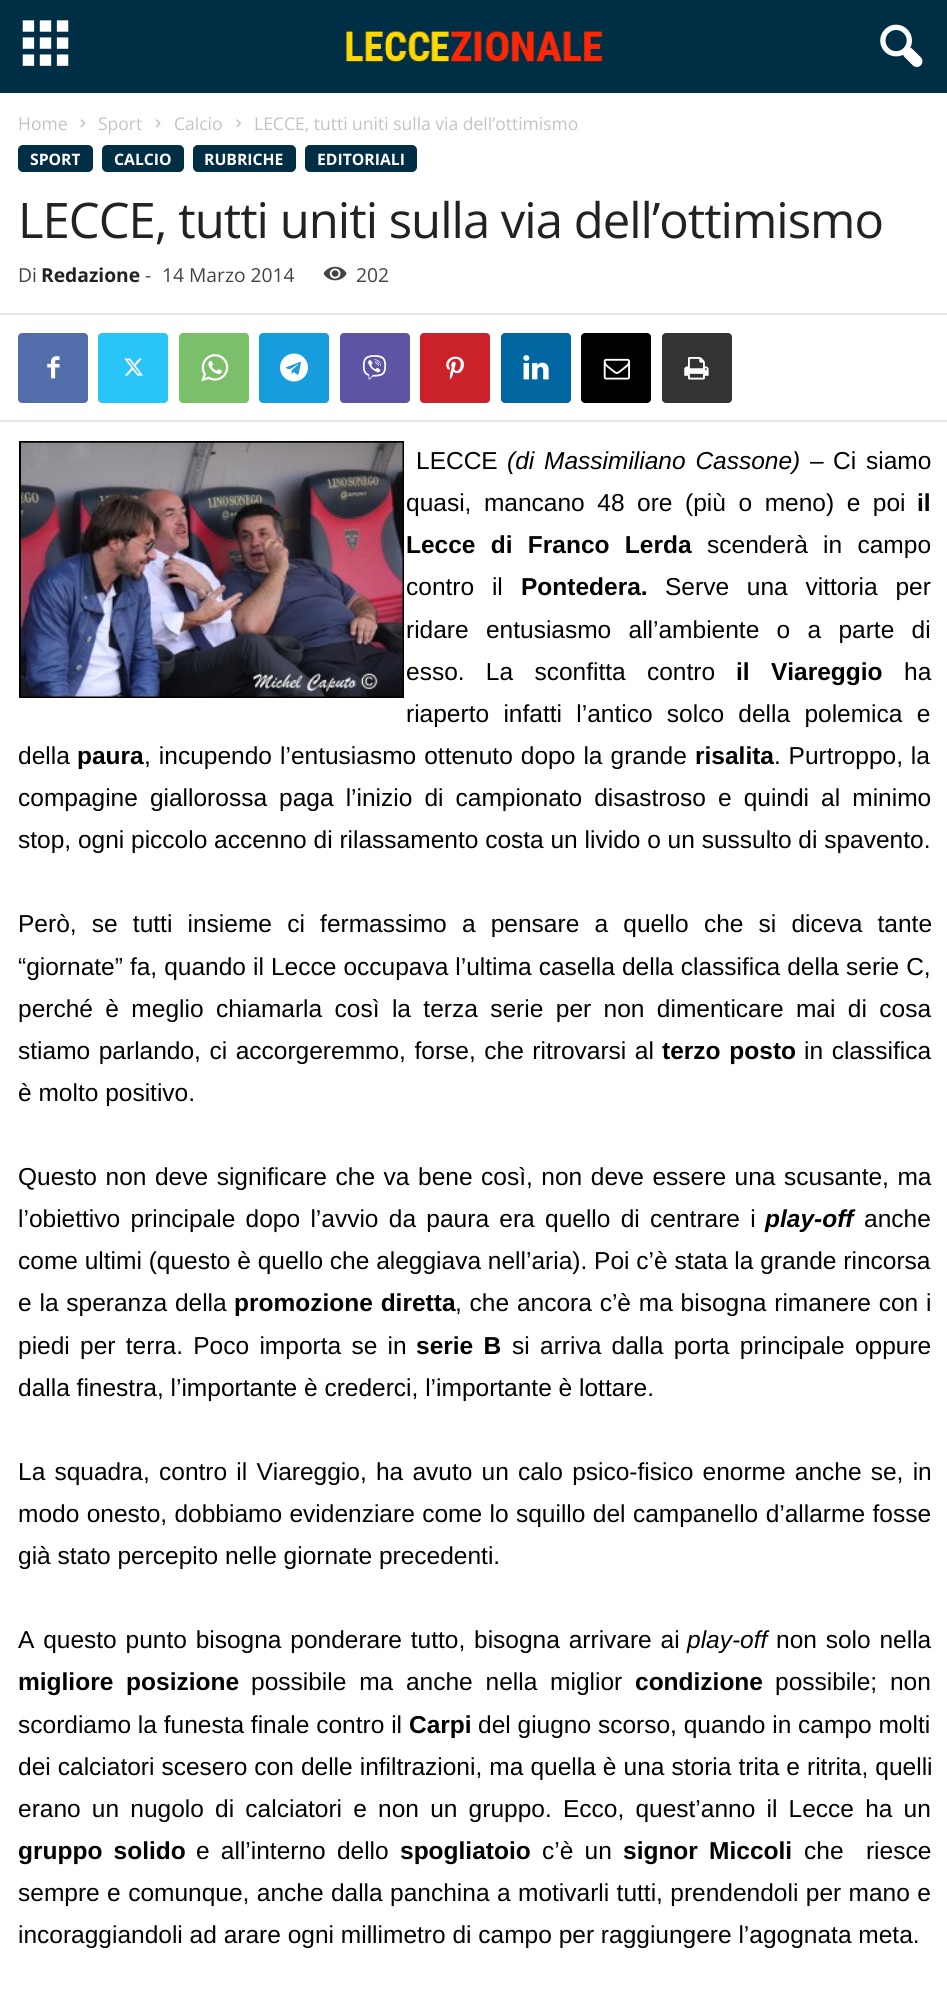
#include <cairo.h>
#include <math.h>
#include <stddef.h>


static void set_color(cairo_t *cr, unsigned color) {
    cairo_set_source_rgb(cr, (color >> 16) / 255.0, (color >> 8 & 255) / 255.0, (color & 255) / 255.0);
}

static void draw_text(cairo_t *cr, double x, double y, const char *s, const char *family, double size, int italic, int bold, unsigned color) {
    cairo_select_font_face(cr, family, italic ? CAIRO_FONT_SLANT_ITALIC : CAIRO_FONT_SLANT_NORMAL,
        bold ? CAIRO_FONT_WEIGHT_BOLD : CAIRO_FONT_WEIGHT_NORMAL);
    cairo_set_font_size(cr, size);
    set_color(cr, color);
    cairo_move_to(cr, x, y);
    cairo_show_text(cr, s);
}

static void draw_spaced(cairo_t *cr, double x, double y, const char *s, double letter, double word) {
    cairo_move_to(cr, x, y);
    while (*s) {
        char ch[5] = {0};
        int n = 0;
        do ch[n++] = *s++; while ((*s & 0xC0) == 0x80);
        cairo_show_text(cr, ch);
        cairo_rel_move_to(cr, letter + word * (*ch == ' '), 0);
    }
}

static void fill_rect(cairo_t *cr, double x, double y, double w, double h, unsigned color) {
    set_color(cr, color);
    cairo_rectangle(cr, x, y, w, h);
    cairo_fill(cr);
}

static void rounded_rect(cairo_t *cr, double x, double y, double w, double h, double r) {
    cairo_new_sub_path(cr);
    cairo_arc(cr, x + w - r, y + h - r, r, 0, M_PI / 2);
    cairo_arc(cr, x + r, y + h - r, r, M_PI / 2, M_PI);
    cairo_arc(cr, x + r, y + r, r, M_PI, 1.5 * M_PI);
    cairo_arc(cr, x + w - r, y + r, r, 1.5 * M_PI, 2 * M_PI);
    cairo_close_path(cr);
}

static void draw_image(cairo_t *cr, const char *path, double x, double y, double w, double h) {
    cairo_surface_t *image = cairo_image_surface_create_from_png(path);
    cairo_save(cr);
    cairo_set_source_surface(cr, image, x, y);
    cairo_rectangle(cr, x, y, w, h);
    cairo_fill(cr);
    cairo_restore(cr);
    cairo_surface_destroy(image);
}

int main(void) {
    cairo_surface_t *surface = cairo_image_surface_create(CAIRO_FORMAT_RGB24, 947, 2007);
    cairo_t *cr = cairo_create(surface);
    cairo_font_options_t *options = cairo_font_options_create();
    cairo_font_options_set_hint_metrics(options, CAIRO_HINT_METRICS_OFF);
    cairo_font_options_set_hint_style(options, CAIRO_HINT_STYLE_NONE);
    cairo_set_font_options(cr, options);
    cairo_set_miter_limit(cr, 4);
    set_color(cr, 0xFFFFFF);
    cairo_paint(cr);
    fill_rect(cr, 0, 0, 947, 93, 0x002E44);
    draw_image(cr, "assets/img1.png", 22, 20, 47, 46);
    draw_image(cr, "assets/img2.png", 346, 31, 257, 31);
    draw_image(cr, "assets/img3.png", 880, 24, 43, 43);
    draw_text(cr, 18, 130, "Home", "Open Sans", 17.5, 0, 0, 0xC3C3C3);
    draw_image(cr, "assets/img4.png", 80, 119, 6, 9);
    draw_text(cr, 98, 130, "Sport", "Open Sans", 17.5, 0, 0, 0xC3C3C3);
    draw_image(cr, "assets/img5.png", 155, 119, 6, 9);
    draw_text(cr, 174, 130, "Calcio", "Open Sans", 17.5, 0, 0, 0xC3C3C3);
    draw_image(cr, "assets/img6.png", 236, 119, 5, 9);
    draw_text(cr, 254, 130, "LECCE, tutti uniti sulla via dell’ottimismo", "Open Sans", 17.5, 0, 0, 0xC3C3C3);
    set_color(cr, 0x002E44);
    rounded_rect(cr, 18, 145, 75, 27, 5);
    cairo_fill(cr);
    draw_text(cr, 30, 165, "SPORT", "Open Sans", 15.75, 0, 1, 0xFFFFFF);
    set_color(cr, 0x002E44);
    rounded_rect(cr, 102, 145, 82, 27, 5);
    cairo_fill(cr);
    draw_text(cr, 114, 165, "CALCIO", "Open Sans", 15.75, 0, 1, 0xFFFFFF);
    set_color(cr, 0x002E44);
    rounded_rect(cr, 193, 145, 103, 27, 5);
    cairo_fill(cr);
    draw_text(cr, 204, 165, "RUBRICHE", "Open Sans", 15.75, 0, 1, 0xFFFFFF);
    set_color(cr, 0x002E44);
    rounded_rect(cr, 305, 145, 112, 27, 5);
    cairo_fill(cr);
    draw_text(cr, 317, 165, "EDITORIALI", "Open Sans", 15.75, 0, 1, 0xFFFFFF);
    cairo_select_font_face(cr, "Open Sans", CAIRO_FONT_SLANT_NORMAL, CAIRO_FONT_WEIGHT_NORMAL);
    cairo_set_font_size(cr, 49);
    set_color(cr, 0x222222);
    draw_spaced(cr, 18, 238, "LECCE, tutti uniti sulla via dell’ottimismo", -1, 0);
    draw_text(cr, 18, 282, "Di", "Open Sans", 19.25, 0, 0, 0x444444);
    draw_text(cr, 41, 282, "Redazione", "Open Sans", 19.25, 0, 1, 0x222222);
    draw_text(cr, 145, 282, "-", "Open Sans", 19.25, 0, 0, 0x444444);
    draw_text(cr, 162, 282, "14 Marzo 2014", "Open Sans", 19.25, 0, 0, 0x444444);
    draw_image(cr, "assets/img7.png", 323, 266, 24, 15);
    draw_text(cr, 356, 282, "202", "Open Sans", 19.25, 0, 0, 0x444444);
    fill_rect(cr, 0, 313, 947, 2, 0xE6E6E6);
    set_color(cr, 0x516EAB);
    rounded_rect(cr, 18, 333, 70, 70, 4);
    cairo_fill(cr);
    draw_image(cr, "assets/img8.png", 47, 356, 13, 23);
    set_color(cr, 0x29C5F6);
    rounded_rect(cr, 98, 333, 70, 70, 4);
    cairo_fill(cr);
    draw_image(cr, "assets/img9.png", 124, 358, 19, 18);
    set_color(cr, 0x7BBF6A);
    rounded_rect(cr, 179, 333, 70, 70, 4);
    cairo_fill(cr);
    draw_image(cr, "assets/img10.png", 201, 354, 28, 28);
    set_color(cr, 0x179CDE);
    rounded_rect(cr, 259, 333, 70, 70, 4);
    cairo_fill(cr);
    draw_image(cr, "assets/img11.png", 280, 353, 28, 29);
    set_color(cr, 0x5D54A4);
    rounded_rect(cr, 340, 333, 70, 70, 4);
    cairo_fill(cr);
    draw_image(cr, "assets/img12.png", 362, 355, 25, 25);
    set_color(cr, 0xCA212A);
    rounded_rect(cr, 420, 333, 70, 70, 4);
    cairo_fill(cr);
    draw_image(cr, "assets/img13.png", 446, 356, 18, 24);
    set_color(cr, 0x0266A0);
    rounded_rect(cr, 501, 333, 70, 70, 4);
    cairo_fill(cr);
    draw_image(cr, "assets/img14.png", 523, 355, 26, 25);
    set_color(cr, 0x000000);
    rounded_rect(cr, 581, 333, 70, 70, 4);
    cairo_fill(cr);
    draw_image(cr, "assets/img15.png", 603, 358, 27, 22);
    set_color(cr, 0x333333);
    rounded_rect(cr, 662, 333, 70, 70, 4);
    cairo_fill(cr);
    draw_image(cr, "assets/img16.png", 684, 357, 25, 23);
    fill_rect(cr, 0, 420, 947, 2, 0xE6E6E6);
    cairo_rectangle(cr, 20, 442, 383, 255);
    set_color(cr, 0x000000);
    cairo_stroke(cr);
    draw_image(cr, "assets/img17.png", 21, 442, 382, 255);
    draw_text(cr, 416, 469, "LECCE", "Liberation Sans", 24.5, 0, 0, 0x000000);
    cairo_select_font_face(cr, "Liberation Sans", CAIRO_FONT_SLANT_ITALIC, CAIRO_FONT_WEIGHT_NORMAL);
    draw_spaced(cr, 507, 469, "(di Massimiliano Cassone) –", 0, 3);
    cairo_select_font_face(cr, "Liberation Sans", CAIRO_FONT_SLANT_NORMAL, CAIRO_FONT_WEIGHT_NORMAL);
    draw_spaced(cr, 833, 469, "Ci siamo", 0, 3);
    draw_spaced(cr, 406, 511, "quasi, mancano 48 ore (più o meno) e poi", 0, 5.75);
    draw_text(cr, 917, 511, "il", "Liberation Sans", 24.5, 0, 1, 0x000000);
    draw_spaced(cr, 406, 553, "Lecce di Franco Lerda", 0, 8.5);
    cairo_select_font_face(cr, "Liberation Sans", CAIRO_FONT_SLANT_NORMAL, CAIRO_FONT_WEIGHT_NORMAL);
    draw_spaced(cr, 707, 553, "scenderà in campo", 0, 8.5);
    draw_spaced(cr, 406, 595, "contro il", 0, 11);
    draw_text(cr, 521, 595, "Pontedera.", "Liberation Sans", 24.5, 0, 1, 0x000000);
    cairo_select_font_face(cr, "Liberation Sans", CAIRO_FONT_SLANT_NORMAL, CAIRO_FONT_WEIGHT_NORMAL);
    draw_spaced(cr, 665, 595, "Serve una vittoria per", 0, 11);
    draw_spaced(cr, 406, 638, "ridare entusiasmo all’ambiente o a parte di", 0, 10.5);
    draw_spaced(cr, 406, 680, "esso. La sconfitta contro", 0, 14.5);
    cairo_select_font_face(cr, "Liberation Sans", CAIRO_FONT_SLANT_NORMAL, CAIRO_FONT_WEIGHT_BOLD);
    draw_spaced(cr, 736, 680, "il Viareggio", 0, 14.5);
    draw_text(cr, 904, 680, "ha", "Liberation Sans", 24.5, 0, 0, 0x000000);
    draw_spaced(cr, 406, 722, "riaperto infatti l’antico solco della polemica e", 0, 7.5);
    draw_text(cr, 18, 764, "della", "Liberation Sans", 24.5, 0, 0, 0x000000);
    draw_text(cr, 77, 764, "paura", "Liberation Sans", 24.5, 0, 1, 0x000000);
    cairo_select_font_face(cr, "Liberation Sans", CAIRO_FONT_SLANT_NORMAL, CAIRO_FONT_WEIGHT_NORMAL);
    draw_spaced(cr, 144, 764, ", incupendo l’entusiasmo ottenuto dopo la grande", 0, 1.25);
    draw_text(cr, 695, 764, "risalita", "Liberation Sans", 24.5, 0, 1, 0x000000);
    cairo_select_font_face(cr, "Liberation Sans", CAIRO_FONT_SLANT_NORMAL, CAIRO_FONT_WEIGHT_NORMAL);
    draw_spaced(cr, 774, 764, ". Purtroppo, la", 0, 1);
    draw_spaced(cr, 18, 806, "compagine giallorossa paga l’inizio di campionato disastroso e quindi al minimo", 0, 5.25);
    draw_text(cr, 18, 848, "stop, ogni piccolo accenno di rilassamento costa un livido o un sussulto di spavento.", "Liberation Sans", 24.5, 0, 0, 0x000000);
    draw_spaced(cr, 18, 932, "Però, se tutti insieme ci fermassimo a pensare a quello che si diceva tante", 0, 8.4);
    draw_spaced(cr, 18, 975, "“giornate” fa, quando il Lecce occupava l’ultima casella della classifica della serie C,", 0, 0.25);
    draw_spaced(cr, 18, 1017, "perché è meglio chiamarla così la terza serie per non dimenticare mai di cosa", 0, 5.6);
    draw_spaced(cr, 18, 1059, "stiamo parlando, ci accorgeremmo, forse, che ritrovarsi al", 0, 1.75);
    cairo_select_font_face(cr, "Liberation Sans", CAIRO_FONT_SLANT_NORMAL, CAIRO_FONT_WEIGHT_BOLD);
    draw_spaced(cr, 662, 1059, "terzo posto", 0, 2);
    cairo_select_font_face(cr, "Liberation Sans", CAIRO_FONT_SLANT_NORMAL, CAIRO_FONT_WEIGHT_NORMAL);
    draw_spaced(cr, 804, 1059, "in classifica", 0, 1.75);
    draw_text(cr, 18, 1101, "è molto positivo.", "Liberation Sans", 24.5, 0, 0, 0x000000);
    draw_spaced(cr, 18, 1185, "Questo non deve significare che va bene così, non deve essere una scusante, ma", 0, 1.75);
    draw_spaced(cr, 18, 1227, "l’obiettivo principale dopo l’avvio da paura era quello di centrare i", 0, 3.5);
    draw_text(cr, 765, 1227, "play-off", "Liberation Sans", 24.5, 1, 1, 0x000000);
    draw_text(cr, 864, 1227, "anche", "Liberation Sans", 24.5, 0, 0, 0x000000);
    draw_text(cr, 18, 1269, "come ultimi (questo è quello che aleggiava nell’aria). Poi c’è stata la grande rincorsa", "Liberation Sans", 24.5, 0, 0, 0x000000);
    draw_spaced(cr, 18, 1311, "e la speranza della", 0, 1);
    cairo_select_font_face(cr, "Liberation Sans", CAIRO_FONT_SLANT_NORMAL, CAIRO_FONT_WEIGHT_BOLD);
    draw_spaced(cr, 234, 1311, "promozione diretta", 0, 1);
    cairo_select_font_face(cr, "Liberation Sans", CAIRO_FONT_SLANT_NORMAL, CAIRO_FONT_WEIGHT_NORMAL);
    draw_spaced(cr, 455, 1311, ", che ancora c’è ma bisogna rimanere con i", 0, 1);
    draw_spaced(cr, 18, 1354, "piedi per terra. Poco importa se in", 0, 3.5);
    cairo_select_font_face(cr, "Liberation Sans", CAIRO_FONT_SLANT_NORMAL, CAIRO_FONT_WEIGHT_BOLD);
    draw_spaced(cr, 416, 1354, "serie B", 0, 3.5);
    cairo_select_font_face(cr, "Liberation Sans", CAIRO_FONT_SLANT_NORMAL, CAIRO_FONT_WEIGHT_NORMAL);
    draw_spaced(cr, 512, 1354, "si arriva dalla porta principale oppure", 0, 3.5);
    draw_text(cr, 18, 1396, "dalla finestra, l’importante è crederci, l’importante è lottare.", "Liberation Sans", 24.5, 0, 0, 0x000000);
    draw_spaced(cr, 18, 1480, "La squadra, contro il Viareggio, ha avuto un calo psico-fisico enorme anche se, in", 0, 2.4);
    draw_spaced(cr, 18, 1522, "modo onesto, dobbiamo evidenziare come lo squillo del campanello d’allarme fosse", 0, 0.6);
    draw_text(cr, 18, 1564, "già stato percepito nelle giornate precedenti.", "Liberation Sans", 24.5, 0, 0, 0x000000);
    draw_spaced(cr, 18, 1648, "A questo punto bisogna ponderare tutto, bisogna arrivare ai", 0, 2);
    draw_text(cr, 687, 1648, "play-off", "Liberation Sans", 24.5, 1, 0, 0x000000);
    cairo_select_font_face(cr, "Liberation Sans", CAIRO_FONT_SLANT_NORMAL, CAIRO_FONT_WEIGHT_NORMAL);
    draw_spaced(cr, 776, 1648, "non solo nella", 0, 2);
    cairo_select_font_face(cr, "Liberation Sans", CAIRO_FONT_SLANT_NORMAL, CAIRO_FONT_WEIGHT_BOLD);
    draw_spaced(cr, 18, 1690, "migliore posizione", 0, 6);
    cairo_select_font_face(cr, "Liberation Sans", CAIRO_FONT_SLANT_NORMAL, CAIRO_FONT_WEIGHT_NORMAL);
    draw_spaced(cr, 251, 1690, "possibile ma anche nella miglior", 0, 6);
    draw_text(cr, 635, 1690, "condizione", "Liberation Sans", 24.5, 0, 1, 0x000000);
    cairo_select_font_face(cr, "Liberation Sans", CAIRO_FONT_SLANT_NORMAL, CAIRO_FONT_WEIGHT_NORMAL);
    draw_spaced(cr, 775, 1690, "possibile; non", 0, 6);
    draw_text(cr, 18, 1733, "scordiamo la funesta finale contro il", "Liberation Sans", 24.5, 0, 0, 0x000000);
    draw_text(cr, 409, 1733, "Carpi", "Liberation Sans", 24.5, 0, 1, 0x000000);
    draw_text(cr, 478, 1733, "del giugno scorso, quando in campo molti", "Liberation Sans", 24.5, 0, 0, 0x000000);
    draw_spaced(cr, 18, 1775, "dei calciatori scesero con delle infiltrazioni, ma quella è una storia trita e ritrita, quelli", 0, 0.25);
    draw_spaced(cr, 18, 1817, "erano un nugolo di calciatori e non un gruppo. Ecco, quest’anno il Lecce ha un", 0, 4.4);
    cairo_select_font_face(cr, "Liberation Sans", CAIRO_FONT_SLANT_NORMAL, CAIRO_FONT_WEIGHT_BOLD);
    draw_spaced(cr, 18, 1859, "gruppo solido", 0, 4.4);
    cairo_select_font_face(cr, "Liberation Sans", CAIRO_FONT_SLANT_NORMAL, CAIRO_FONT_WEIGHT_NORMAL);
    draw_spaced(cr, 196, 1859, "e all’interno dello", 0, 4.4);
    draw_text(cr, 400, 1859, "spogliatoio", "Liberation Sans", 24.5, 0, 1, 0x000000);
    cairo_select_font_face(cr, "Liberation Sans", CAIRO_FONT_SLANT_NORMAL, CAIRO_FONT_WEIGHT_NORMAL);
    draw_spaced(cr, 542, 1859, "c’è un", 0, 4.4);
    cairo_select_font_face(cr, "Liberation Sans", CAIRO_FONT_SLANT_NORMAL, CAIRO_FONT_WEIGHT_BOLD);
    draw_spaced(cr, 623, 1859, "signor Miccoli", 0, 4.4);
    cairo_select_font_face(cr, "Liberation Sans", CAIRO_FONT_SLANT_NORMAL, CAIRO_FONT_WEIGHT_NORMAL);
    draw_spaced(cr, 804, 1859, "che  riesce", 0, 4.4);
    draw_spaced(cr, 18, 1901, "sempre e comunque, anche dalla panchina a motivarli tutti, prendendoli per mano e", 0, 0.6);
    draw_text(cr, 18, 1943, "incoraggiandoli ad arare ogni millimetro di campo per raggiungere l’agognata meta.", "Liberation Sans", 24.5, 0, 0, 0x000000);
    cairo_surface_write_to_png(surface, "output.png");
    cairo_font_options_destroy(options);
    cairo_destroy(cr);
    cairo_surface_destroy(surface);
    return 0;
}
